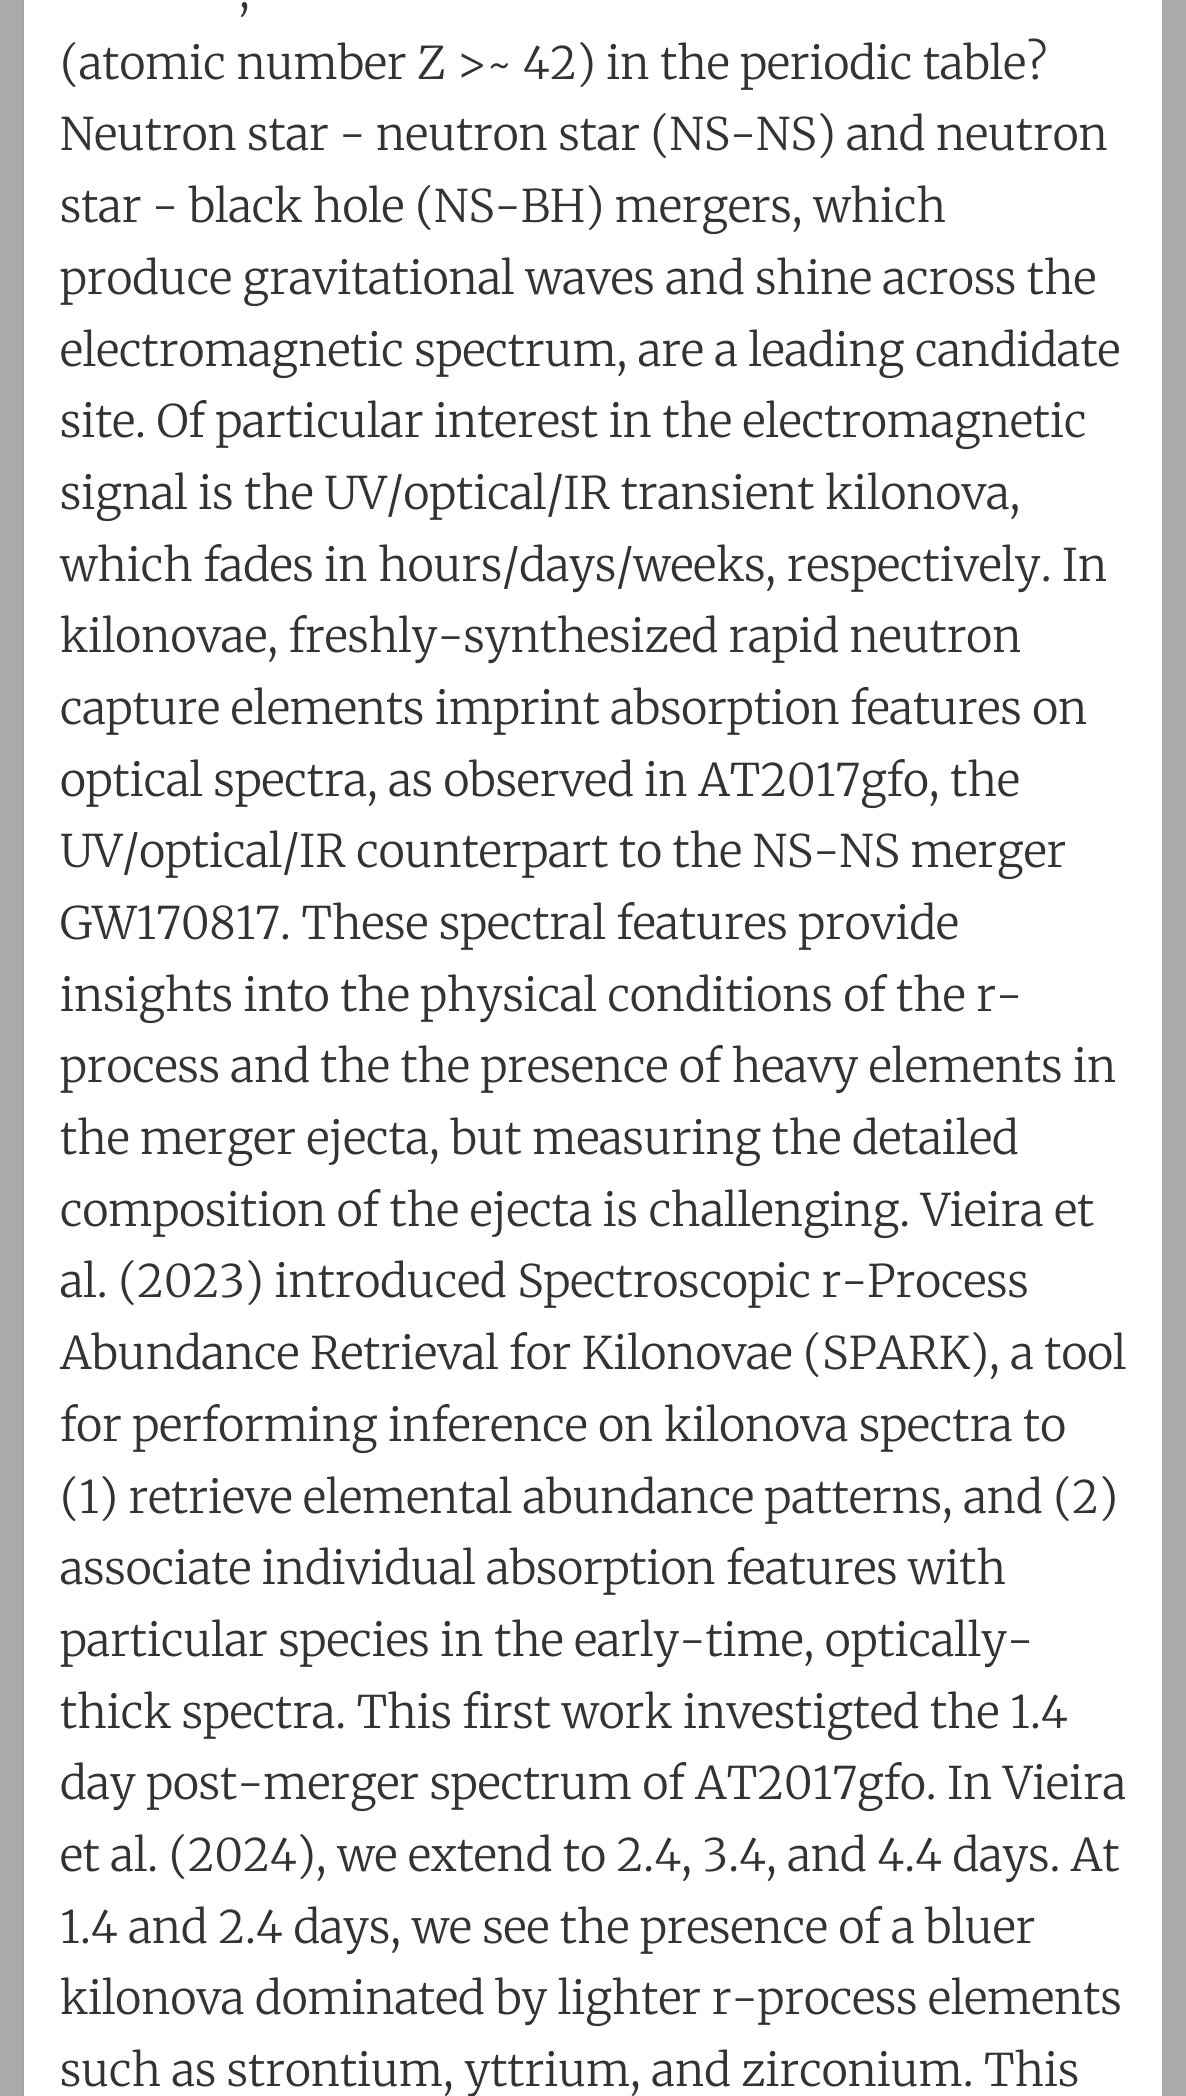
#include <cairo.h>
#include <math.h>
#include <stddef.h>


static void set_color(cairo_t *cr, unsigned color) {
    cairo_set_source_rgb(cr, (color >> 16) / 255.0, (color >> 8 & 255) / 255.0, (color & 255) / 255.0);
}

static void draw_text(cairo_t *cr, double x, double y, const char *s, const char *family, double size, int italic, int bold, unsigned color) {
    cairo_select_font_face(cr, family, italic ? CAIRO_FONT_SLANT_ITALIC : CAIRO_FONT_SLANT_NORMAL,
        bold ? CAIRO_FONT_WEIGHT_BOLD : CAIRO_FONT_WEIGHT_NORMAL);
    cairo_set_font_size(cr, size);
    set_color(cr, color);
    cairo_move_to(cr, x, y);
    cairo_show_text(cr, s);
}

static void fill_rect(cairo_t *cr, double x, double y, double w, double h, unsigned color) {
    set_color(cr, color);
    cairo_rectangle(cr, x, y, w, h);
    cairo_fill(cr);
}

static void rounded_rect(cairo_t *cr, double x, double y, double w, double h, double r) {
    cairo_new_sub_path(cr);
    cairo_arc(cr, x + w - r, y + h - r, r, 0, M_PI / 2);
    cairo_arc(cr, x + r, y + h - r, r, M_PI / 2, M_PI);
    cairo_arc(cr, x + r, y + r, r, M_PI, 1.5 * M_PI);
    cairo_arc(cr, x + w - r, y + r, r, 1.5 * M_PI, 2 * M_PI);
    cairo_close_path(cr);
}

static void draw_shadow(cairo_t *cr, double x, double y, double w, double h, double r, double blur, double alpha) {
    cairo_push_group_with_content(cr, CAIRO_CONTENT_ALPHA);
    cairo_set_operator(cr, CAIRO_OPERATOR_SOURCE);
    for (int i = 15; i >= -15 && fmin(w, h) + blur * i / 3 > 0; i -= 2) {
        double e = blur * i / 6;
        cairo_set_source_rgba(cr, 0, 0, 0, alpha * erfc((i - 1) / 8.5) / 2);
        rounded_rect(cr, x - e, y - e, w + 2 * e, h + 2 * e, fmax(0, fmin(r + e + blur * .6, fmin(w, h) / 2 + e)));
        cairo_fill(cr);
    }
    cairo_pattern_t *soft = cairo_pop_group(cr);
    cairo_mask(cr, soft);
    cairo_pattern_destroy(soft);
}

int main(void) {
    cairo_surface_t *surface = cairo_image_surface_create(CAIRO_FORMAT_RGB24, 1186, 2096);
    cairo_t *cr = cairo_create(surface);
    cairo_font_options_t *options = cairo_font_options_create();
    cairo_font_options_set_hint_metrics(options, CAIRO_HINT_METRICS_OFF);
    cairo_font_options_set_hint_style(options, CAIRO_HINT_STYLE_NONE);
    cairo_set_font_options(cr, options);
    cairo_set_miter_limit(cr, 4);
    set_color(cr, 0xAAAAAA);
    cairo_paint(cr);
    set_color(cr, 0x000000);
    draw_shadow(cr, 24, -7, 1138, 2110, 4, 1, 0.12);
    fill_rect(cr, 24, 0, 1138, 2096, 0xFFFFFF);
    draw_text(cr, 239, 7, ",", "Merriweather Light", 44.8, 0, 0, 0x333333);
    draw_text(cr, 60, 79, "(atomic number Z >~ 42) in the periodic table?", "Merriweather Light", 44.8, 0, 0, 0x333333);
    draw_text(cr, 60, 150, "Neutron star - neutron star (NS-NS) and neutron", "Merriweather Light", 44.8, 0, 0, 0x333333);
    draw_text(cr, 60, 222, "star - black hole (NS-BH) mergers, which", "Merriweather Light", 44.8, 0, 0, 0x333333);
    draw_text(cr, 60, 294, "produce gravitational waves and shine across the", "Merriweather Light", 44.8, 0, 0, 0x333333);
    draw_text(cr, 60, 366, "electromagnetic spectrum, are a leading candidate", "Merriweather Light", 44.8, 0, 0, 0x333333);
    draw_text(cr, 60, 437, "site. Of particular interest in the electromagnetic", "Merriweather Light", 44.8, 0, 0, 0x333333);
    draw_text(cr, 60, 509, "signal is the UV/optical/IR transient kilonova,", "Merriweather Light", 44.8, 0, 0, 0x333333);
    draw_text(cr, 60, 581, "which fades in hours/days/weeks, respectively. In", "Merriweather Light", 44.8, 0, 0, 0x333333);
    draw_text(cr, 60, 652, "kilonovae, freshly-synthesized rapid neutron", "Merriweather Light", 44.8, 0, 0, 0x333333);
    draw_text(cr, 60, 724, "capture elements imprint absorption features on", "Merriweather Light", 44.8, 0, 0, 0x333333);
    draw_text(cr, 60, 796, "optical spectra, as observed in AT2017gfo, the", "Merriweather Light", 44.8, 0, 0, 0x333333);
    draw_text(cr, 60, 867, "UV/optical/IR counterpart to the NS-NS merger", "Merriweather Light", 44.8, 0, 0, 0x333333);
    draw_text(cr, 60, 939, "GW170817. These spectral features provide", "Merriweather Light", 44.8, 0, 0, 0x333333);
    draw_text(cr, 60, 1011, "insights into the physical conditions of the r-", "Merriweather Light", 44.8, 0, 0, 0x333333);
    draw_text(cr, 60, 1082, "process and the the presence of heavy elements in", "Merriweather Light", 44.8, 0, 0, 0x333333);
    draw_text(cr, 60, 1154, "the merger ejecta, but measuring the detailed", "Merriweather Light", 44.8, 0, 0, 0x333333);
    draw_text(cr, 60, 1226, "composition of the ejecta is challenging. Vieira et", "Merriweather Light", 44.8, 0, 0, 0x333333);
    draw_text(cr, 60, 1297, "al. (2023) introduced Spectroscopic r-Process", "Merriweather Light", 44.8, 0, 0, 0x333333);
    draw_text(cr, 60, 1369, "Abundance Retrieval for Kilonovae (SPARK), a tool", "Merriweather Light", 44.8, 0, 0, 0x333333);
    draw_text(cr, 60, 1441, "for performing inference on kilonova spectra to", "Merriweather Light", 44.8, 0, 0, 0x333333);
    draw_text(cr, 60, 1513, "(1) retrieve elemental abundance patterns, and (2)", "Merriweather Light", 44.8, 0, 0, 0x333333);
    draw_text(cr, 60, 1584, "associate individual absorption features with", "Merriweather Light", 44.8, 0, 0, 0x333333);
    draw_text(cr, 60, 1656, "particular species in the early-time, optically-", "Merriweather Light", 44.8, 0, 0, 0x333333);
    draw_text(cr, 60, 1728, "thick spectra. This first work investigted the 1.4", "Merriweather Light", 44.8, 0, 0, 0x333333);
    draw_text(cr, 60, 1799, "day post-merger spectrum of AT2017gfo. In Vieira", "Merriweather Light", 44.8, 0, 0, 0x333333);
    draw_text(cr, 60, 1871, "et al. (2024), we extend to 2.4, 3.4, and 4.4 days. At", "Merriweather Light", 44.8, 0, 0, 0x333333);
    draw_text(cr, 60, 1943, "1.4 and 2.4 days, we see the presence of a bluer", "Merriweather Light", 44.8, 0, 0, 0x333333);
    draw_text(cr, 60, 2014, "kilonova dominated by lighter r-process elements", "Merriweather Light", 44.8, 0, 0, 0x333333);
    draw_text(cr, 60, 2086, "such as strontium, yttrium, and zirconium. This", "Merriweather Light", 44.8, 0, 0, 0x333333);
    cairo_surface_write_to_png(surface, "output.png");
    cairo_font_options_destroy(options);
    cairo_destroy(cr);
    cairo_surface_destroy(surface);
    return 0;
}
